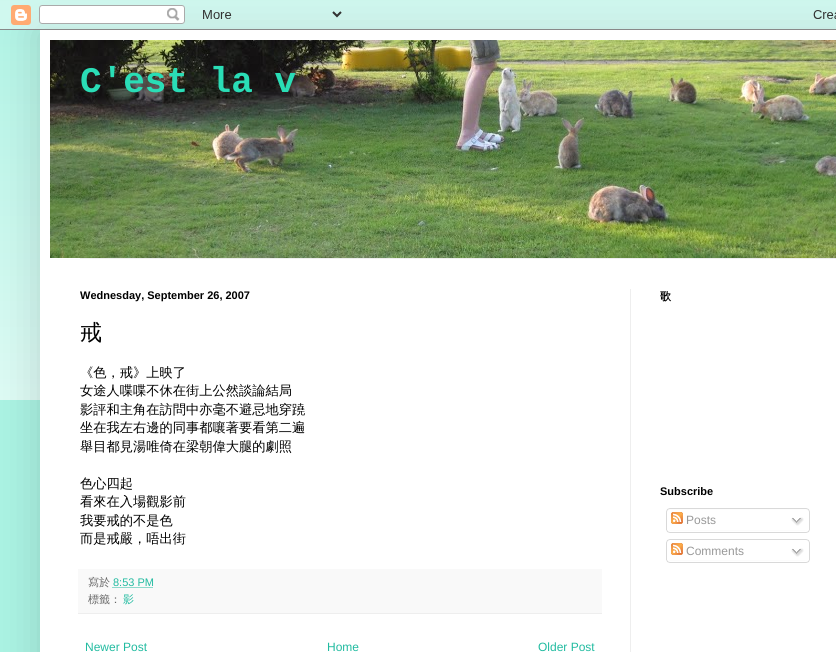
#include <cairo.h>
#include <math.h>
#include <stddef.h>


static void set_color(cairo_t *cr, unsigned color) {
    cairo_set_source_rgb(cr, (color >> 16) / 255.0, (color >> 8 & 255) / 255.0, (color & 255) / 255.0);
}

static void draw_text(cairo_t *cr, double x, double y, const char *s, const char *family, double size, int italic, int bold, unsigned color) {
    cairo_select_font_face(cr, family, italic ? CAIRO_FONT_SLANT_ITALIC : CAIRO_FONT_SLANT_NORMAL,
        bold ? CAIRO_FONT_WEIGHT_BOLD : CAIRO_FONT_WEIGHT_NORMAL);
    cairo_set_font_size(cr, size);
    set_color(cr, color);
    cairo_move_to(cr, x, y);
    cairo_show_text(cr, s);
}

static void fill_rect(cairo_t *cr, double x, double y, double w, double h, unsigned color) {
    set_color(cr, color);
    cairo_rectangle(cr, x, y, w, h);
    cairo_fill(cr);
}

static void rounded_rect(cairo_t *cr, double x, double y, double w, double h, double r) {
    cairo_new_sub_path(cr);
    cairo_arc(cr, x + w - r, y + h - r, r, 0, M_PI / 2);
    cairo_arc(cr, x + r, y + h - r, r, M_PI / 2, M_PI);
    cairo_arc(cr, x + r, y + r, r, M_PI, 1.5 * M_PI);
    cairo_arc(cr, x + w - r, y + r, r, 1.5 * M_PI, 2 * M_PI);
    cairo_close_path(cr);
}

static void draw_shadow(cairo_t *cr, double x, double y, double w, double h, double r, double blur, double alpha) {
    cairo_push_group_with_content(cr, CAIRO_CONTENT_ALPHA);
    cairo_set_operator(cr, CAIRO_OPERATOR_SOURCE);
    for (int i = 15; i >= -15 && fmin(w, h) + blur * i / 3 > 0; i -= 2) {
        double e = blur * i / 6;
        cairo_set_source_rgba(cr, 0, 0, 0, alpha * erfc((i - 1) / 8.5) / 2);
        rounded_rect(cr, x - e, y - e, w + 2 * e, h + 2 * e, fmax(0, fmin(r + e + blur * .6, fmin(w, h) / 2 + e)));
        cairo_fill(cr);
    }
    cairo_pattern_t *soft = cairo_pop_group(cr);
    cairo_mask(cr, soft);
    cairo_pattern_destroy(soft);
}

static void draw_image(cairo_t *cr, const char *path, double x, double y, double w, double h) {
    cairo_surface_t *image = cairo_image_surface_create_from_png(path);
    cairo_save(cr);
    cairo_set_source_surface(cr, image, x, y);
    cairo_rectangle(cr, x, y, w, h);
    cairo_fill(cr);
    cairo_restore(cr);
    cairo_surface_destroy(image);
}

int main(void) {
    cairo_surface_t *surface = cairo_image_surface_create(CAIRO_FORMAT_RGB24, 836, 652);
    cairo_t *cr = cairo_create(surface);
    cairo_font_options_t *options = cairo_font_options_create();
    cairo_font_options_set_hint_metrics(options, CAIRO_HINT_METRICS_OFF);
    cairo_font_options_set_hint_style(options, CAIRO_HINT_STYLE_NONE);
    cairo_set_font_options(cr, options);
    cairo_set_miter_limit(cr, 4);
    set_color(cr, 0xAAF2E2);
    cairo_paint(cr);
    draw_image(cr, "assets/img1.png", 0, 0, 836, 400);
    set_color(cr, 0x000000);
    draw_shadow(cr, 40, 30, 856, 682, 0, 20, 0.15);
    draw_image(cr, "assets/img2.png", 0, 0, 836, 30);
    fill_rect(cr, 40, 30, 796, 622, 0xFFFFFF);
    draw_image(cr, "assets/img3.png", 50, 40, 786, 218);
    draw_text(cr, 80, 92, "C'est la v", "Liberation Mono", 36, 0, 1, 0x2ADDB6);
    fill_rect(cr, 80, 258, 756, 1, 0xEEEEEE);
    fill_rect(cr, 630, 289, 1, 363, 0xEEEEEE);
    draw_text(cr, 80, 299, "Wednesday, September 26, 2007", "Liberation Sans", 11, 0, 1, 0x000000);
    draw_text(cr, 80, 340, "戒", "WenQuanYi Zen Hei Medium", 22, 0, 0, 0x000000);
    draw_text(cr, 80, 377, "《色，戒》上映了", "WenQuanYi Zen Hei Medium", 13.25, 0, 0, 0x000000);
    draw_text(cr, 80, 395, "女途人喋喋不休在街上公然談論結局", "WenQuanYi Zen Hei Medium", 13.25, 0, 0, 0x000000);
    draw_text(cr, 80, 414, "影評和主角在訪問中亦毫不避忌地穿蹺", "WenQuanYi Zen Hei Medium", 13.25, 0, 0, 0x000000);
    draw_text(cr, 80, 432, "坐在我左右邊的同事都嚷著要看第二遍", "WenQuanYi Zen Hei Medium", 13.25, 0, 0, 0x000000);
    draw_text(cr, 80, 451, "舉目都見湯唯倚在梁朝偉大腿的劇照", "WenQuanYi Zen Hei Medium", 13.25, 0, 0, 0x000000);
    draw_text(cr, 80, 488, "色心四起", "WenQuanYi Zen Hei Medium", 13.25, 0, 0, 0x000000);
    draw_text(cr, 80, 506, "看來在入場觀影前", "WenQuanYi Zen Hei Medium", 13.25, 0, 0, 0x000000);
    draw_text(cr, 80, 525, "我要戒的不是色", "WenQuanYi Zen Hei Medium", 13.25, 0, 0, 0x000000);
    draw_text(cr, 80, 543, "而是戒嚴，唔出街", "WenQuanYi Zen Hei Medium", 13.25, 0, 0, 0x000000);
    fill_rect(cr, 78, 569, 524, 44, 0xF9F9F9);
    fill_rect(cr, 78, 613, 524, 1, 0xEEEEEE);
    draw_text(cr, 88, 586, "寫於", "WenQuanYi Zen Hei Medium", 11, 0, 0, 0x666666);
    draw_text(cr, 113, 586, "8:53 PM", "Liberation Sans", 11, 0, 0, 0x21BBA0);
    cairo_new_path(cr);
    cairo_move_to(cr, 112.5, 587.5);
    cairo_line_to(cr, 153, 587.5);
    cairo_set_line_width(cr, 1);
    cairo_set_dash(cr, (double[]){1, 1}, 2, 0);
    cairo_stroke(cr);
    draw_text(cr, 88, 603, "標籤：", "WenQuanYi Zen Hei Medium", 11, 0, 0, 0x666666);
    draw_text(cr, 123, 603, "影", "WenQuanYi Zen Hei Medium", 11, 0, 0, 0x21BBA0);
    draw_text(cr, 85, 651, "Newer Post", "Liberation Sans", 12, 0, 0, 0x21BBA0);
    draw_text(cr, 327, 651, "Home", "Liberation Sans", 12, 0, 0, 0x21BBA0);
    draw_text(cr, 538, 651, "Older Post", "Liberation Sans", 12, 0, 0, 0x21BBA0);
    draw_text(cr, 660, 300, "歌", "WenQuanYi Zen Hei", 11, 0, 1, 0x000000);
    draw_text(cr, 660, 495, "Subscribe", "Liberation Sans", 11, 0, 1, 0x000000);
    draw_image(cr, "assets/img4.png", 666, 508, 144, 22);
    draw_image(cr, "assets/img5.png", 671, 512, 12, 12);
    draw_text(cr, 686, 524, "Posts", "Liberation Sans", 12, 0, 0, 0x999999);
    draw_image(cr, "assets/img6.png", 791, 517, 13, 9);
    draw_image(cr, "assets/img7.png", 666, 530, 144, 3);
    draw_image(cr, "assets/img8.png", 666, 539, 144, 21);
    draw_image(cr, "assets/img5.png", 671, 543, 12, 12);
    draw_text(cr, 686, 555, "Comments", "Liberation Sans", 12, 0, 0, 0x999999);
    draw_image(cr, "assets/img6.png", 791, 548, 13, 9);
    draw_image(cr, "assets/img7.png", 666, 560, 144, 3);
    cairo_surface_write_to_png(surface, "output.png");
    cairo_font_options_destroy(options);
    cairo_destroy(cr);
    cairo_surface_destroy(surface);
    return 0;
}
